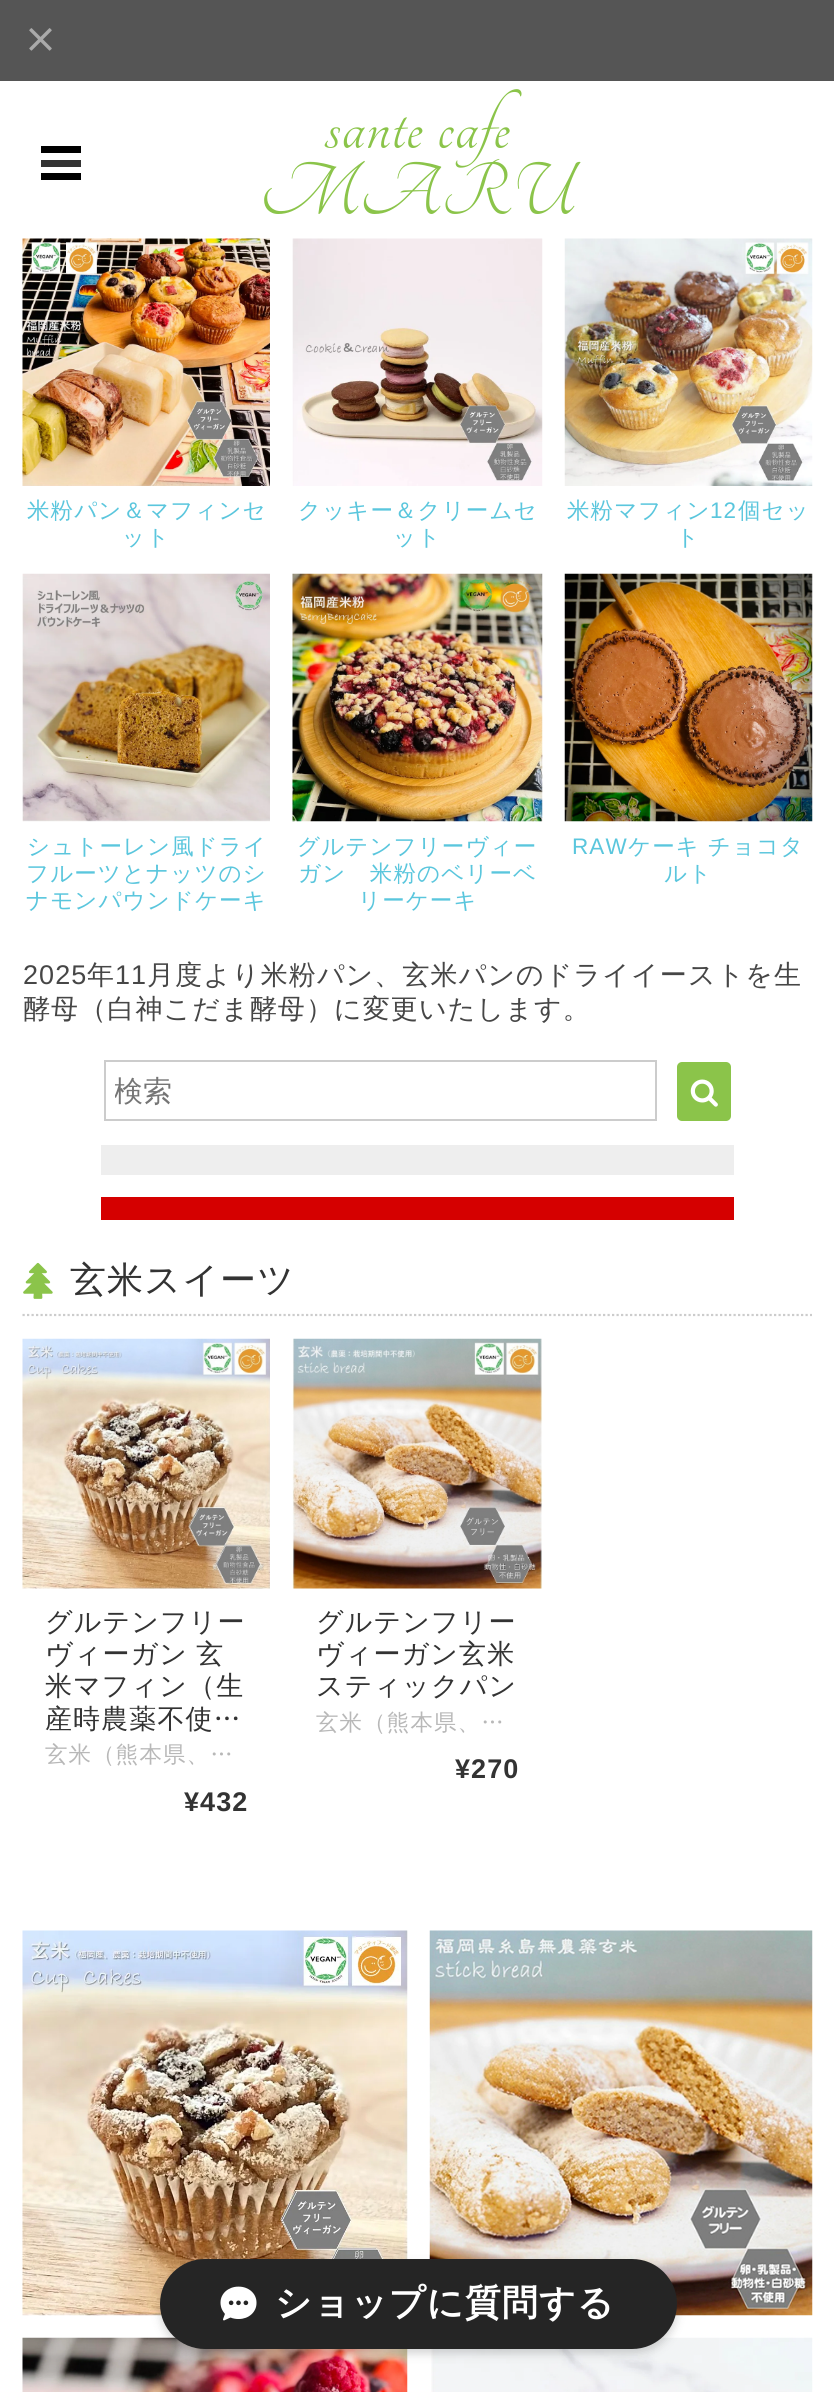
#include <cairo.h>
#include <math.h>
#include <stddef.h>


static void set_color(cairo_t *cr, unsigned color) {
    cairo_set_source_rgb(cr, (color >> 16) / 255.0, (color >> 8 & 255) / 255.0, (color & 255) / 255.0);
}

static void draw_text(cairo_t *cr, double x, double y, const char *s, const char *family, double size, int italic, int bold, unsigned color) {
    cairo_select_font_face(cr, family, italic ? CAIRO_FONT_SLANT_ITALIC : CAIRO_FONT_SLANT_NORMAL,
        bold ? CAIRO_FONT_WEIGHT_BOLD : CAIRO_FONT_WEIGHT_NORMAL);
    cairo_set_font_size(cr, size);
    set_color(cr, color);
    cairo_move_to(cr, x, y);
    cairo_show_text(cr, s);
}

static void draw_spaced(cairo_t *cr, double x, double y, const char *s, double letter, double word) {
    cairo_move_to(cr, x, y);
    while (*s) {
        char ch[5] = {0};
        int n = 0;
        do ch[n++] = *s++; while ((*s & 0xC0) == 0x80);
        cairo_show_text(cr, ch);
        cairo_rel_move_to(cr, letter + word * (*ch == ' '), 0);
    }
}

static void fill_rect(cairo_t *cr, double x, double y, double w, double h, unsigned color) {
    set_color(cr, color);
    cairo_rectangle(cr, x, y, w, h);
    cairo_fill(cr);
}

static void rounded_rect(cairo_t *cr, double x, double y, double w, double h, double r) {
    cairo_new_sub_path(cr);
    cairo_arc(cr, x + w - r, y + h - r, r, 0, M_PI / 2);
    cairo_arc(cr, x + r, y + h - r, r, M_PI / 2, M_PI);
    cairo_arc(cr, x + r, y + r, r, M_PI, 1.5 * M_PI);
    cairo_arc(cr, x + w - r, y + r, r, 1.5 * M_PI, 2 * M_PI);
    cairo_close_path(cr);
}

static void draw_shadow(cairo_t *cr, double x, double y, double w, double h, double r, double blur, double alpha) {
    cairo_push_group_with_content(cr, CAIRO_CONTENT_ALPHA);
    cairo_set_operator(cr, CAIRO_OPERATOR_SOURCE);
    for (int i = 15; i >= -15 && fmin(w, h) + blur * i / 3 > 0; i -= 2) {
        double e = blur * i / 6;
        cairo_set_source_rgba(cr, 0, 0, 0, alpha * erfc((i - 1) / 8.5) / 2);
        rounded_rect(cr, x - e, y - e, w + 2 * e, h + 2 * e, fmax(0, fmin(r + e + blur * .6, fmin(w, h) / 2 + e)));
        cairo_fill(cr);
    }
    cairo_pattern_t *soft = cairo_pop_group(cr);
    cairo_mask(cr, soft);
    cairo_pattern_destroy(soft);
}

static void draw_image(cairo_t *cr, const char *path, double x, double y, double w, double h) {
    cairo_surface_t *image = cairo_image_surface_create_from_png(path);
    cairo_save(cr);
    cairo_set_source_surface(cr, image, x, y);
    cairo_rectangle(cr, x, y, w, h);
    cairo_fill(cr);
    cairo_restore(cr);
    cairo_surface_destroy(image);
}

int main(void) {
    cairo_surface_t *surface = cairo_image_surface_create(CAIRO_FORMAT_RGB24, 834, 2392);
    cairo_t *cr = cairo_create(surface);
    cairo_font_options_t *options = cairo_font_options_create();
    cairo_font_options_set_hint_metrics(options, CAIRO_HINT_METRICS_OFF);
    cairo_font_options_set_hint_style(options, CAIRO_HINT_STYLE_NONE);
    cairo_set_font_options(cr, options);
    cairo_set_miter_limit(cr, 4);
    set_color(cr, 0xFFFFFF);
    cairo_paint(cr);
    fill_rect(cr, 0, 0, 834, 81, 0x555555);
    draw_image(cr, "assets/img1.png", 29, 28, 23, 23);
    fill_rect(cr, 41, 160, 40, 7, 0x333333);
    fill_rect(cr, 41, 146, 40, 7, 0x000000);
    fill_rect(cr, 41, 173, 40, 7, 0x000000);
    cairo_select_font_face(cr, "Tangerine", CAIRO_FONT_SLANT_NORMAL, CAIRO_FONT_WEIGHT_NORMAL);
    cairo_set_font_size(cr, 81);
    set_color(cr, 0x8BC44A);
    draw_spaced(cr, 325, 148, "sante cafe", 1.1, 0);
    draw_spaced(cr, 260, 214, "MARU", 1.1, 0);
    draw_image(cr, "assets/img2.png", 22, 238, 248, 248);
    cairo_select_font_face(cr, "WenQuanYi Zen Hei Medium", CAIRO_FONT_SLANT_NORMAL, CAIRO_FONT_WEIGHT_NORMAL);
    cairo_set_font_size(cr, 22.5);
    set_color(cr, 0x5AC6DD);
    draw_spaced(cr, 27, 518, "米粉パン＆マフィンセ", 1.1, 0);
    draw_spaced(cr, 122, 545, "ット", 1.1, 0);
    draw_image(cr, "assets/img3.png", 292, 238, 251, 248);
    draw_spaced(cr, 298, 518, "クッキー＆クリームセ", 1.1, 0);
    draw_spaced(cr, 393, 545, "ット", 1.1, 0);
    draw_image(cr, "assets/img4.png", 564, 238, 249, 248);
    draw_spaced(cr, 567, 518, "米粉マフィン", 1.1, 0);
    cairo_select_font_face(cr, "Liberation Sans", CAIRO_FONT_SLANT_NORMAL, CAIRO_FONT_WEIGHT_NORMAL);
    draw_spaced(cr, 710, 518, "12", 1.1, 0);
    cairo_select_font_face(cr, "WenQuanYi Zen Hei Medium", CAIRO_FONT_SLANT_NORMAL, CAIRO_FONT_WEIGHT_NORMAL);
    draw_spaced(cr, 738, 518, "個セッ", 1.1, 0);
    draw_spaced(cr, 676, 545, "ト", 1.1, 0);
    draw_image(cr, "assets/img5.png", 22, 573, 248, 249);
    draw_spaced(cr, 27, 854, "シュトーレン風ドライ", 1.1, 0);
    draw_spaced(cr, 26, 881, "フルーツとナッツのシ", 1.1, 0);
    draw_spaced(cr, 26, 908, "ナモンパウンドケーキ", 1.1, 0);
    draw_image(cr, "assets/img6.png", 292, 573, 251, 249);
    draw_spaced(cr, 297, 854, "グルテンフリーヴィー", 1.1, 0);
    draw_spaced(cr, 298, 881, "ガン　米粉のベリーベ", 1.1, 0);
    draw_spaced(cr, 358, 908, "リーケーキ", 1.1, 0);
    draw_image(cr, "assets/img7.png", 564, 573, 249, 249);
    cairo_select_font_face(cr, "Liberation Sans", CAIRO_FONT_SLANT_NORMAL, CAIRO_FONT_WEIGHT_NORMAL);
    draw_spaced(cr, 572, 854, "RAW", 1.1, 0);
    cairo_select_font_face(cr, "WenQuanYi Zen Hei Medium", CAIRO_FONT_SLANT_NORMAL, CAIRO_FONT_WEIGHT_NORMAL);
    draw_spaced(cr, 628, 854, "ケーキ チョコタ", 1.1, 0);
    draw_spaced(cr, 664, 881, "ルト", 1.1, 0);
    cairo_select_font_face(cr, "Liberation Sans", CAIRO_FONT_SLANT_NORMAL, CAIRO_FONT_WEIGHT_NORMAL);
    cairo_set_font_size(cr, 27);
    set_color(cr, 0x464646);
    draw_spaced(cr, 23, 984, "2025", 1.1, 0);
    cairo_select_font_face(cr, "WenQuanYi Zen Hei Medium", CAIRO_FONT_SLANT_NORMAL, CAIRO_FONT_WEIGHT_NORMAL);
    draw_spaced(cr, 87, 984, "年", 1.1, 0);
    cairo_select_font_face(cr, "Liberation Sans", CAIRO_FONT_SLANT_NORMAL, CAIRO_FONT_WEIGHT_NORMAL);
    draw_spaced(cr, 115, 984, "11", 1.1, 0);
    cairo_select_font_face(cr, "WenQuanYi Zen Hei Medium", CAIRO_FONT_SLANT_NORMAL, CAIRO_FONT_WEIGHT_NORMAL);
    draw_spaced(cr, 147, 984, "月度より米粉パン、玄米パンのドライイーストを生", 1.1, 0);
    draw_spaced(cr, 23, 1018, "酵母（白神こだま酵母）に変更いたします。", 1.1, 0);
    cairo_rectangle(cr, 105, 1061, 551, 59);
    set_color(cr, 0xCCCCCC);
    cairo_stroke(cr);
    cairo_save(cr);
    cairo_rectangle(cr, 115, 1071, 531, 41);
    cairo_clip(cr);
    draw_text(cr, 114, 1101, "検索", "WenQuanYi Zen Hei Medium", 29, 0, 0, 0x757575);
    cairo_restore(cr);
    set_color(cr, 0x8BC44A);
    rounded_rect(cr, 677, 1062, 54, 59, 5);
    cairo_fill(cr);
    draw_image(cr, "assets/img8.png", 690, 1079, 28, 28);
    fill_rect(cr, 101, 1145, 633, 30, 0xEEEEEE);
    fill_rect(cr, 101, 1197, 633, 23, 0xD50000);
    cairo_new_path(cr);
    cairo_move_to(cr, 22.5, 1315);
    cairo_line_to(cr, 812, 1315);
    set_color(cr, 0xCCCCCC);
    cairo_set_line_width(cr, 2.2);
    cairo_set_dash(cr, (double[]){2.25, 2.25}, 2, 0);
    cairo_stroke(cr);
    draw_image(cr, "assets/img9.png", 23, 1262, 30, 37);
    cairo_set_font_size(cr, 36);
    set_color(cr, 0x333333);
    draw_spaced(cr, 70, 1292, "玄米スイーツ", 1.1, 0);
    draw_image(cr, "assets/img10.png", 22, 1338, 248, 251);
    cairo_set_font_size(cr, 27);
    draw_spaced(cr, 45, 1631, "グルテンフリー", 1.1, 0);
    draw_spaced(cr, 45, 1663, "ヴィーガン 玄", 1.1, -1);
    draw_spaced(cr, 45, 1695, "米マフィン（生", 1.1, 0);
    draw_spaced(cr, 45, 1728, "産時農薬不使…", 1.1, 0);
    cairo_set_font_size(cr, 22.5);
    set_color(cr, 0xB8B8B8);
    draw_spaced(cr, 45, 1762, "玄米（熊本県、…", 1.1, 0);
    cairo_select_font_face(cr, "Liberation Sans", CAIRO_FONT_SLANT_NORMAL, CAIRO_FONT_WEIGHT_BOLD);
    cairo_set_font_size(cr, 27);
    set_color(cr, 0x333333);
    draw_spaced(cr, 184, 1811, "¥432", 1.1, 0);
    draw_image(cr, "assets/img11.png", 292, 1338, 251, 251);
    cairo_select_font_face(cr, "WenQuanYi Zen Hei Medium", CAIRO_FONT_SLANT_NORMAL, CAIRO_FONT_WEIGHT_NORMAL);
    draw_spaced(cr, 316, 1631, "グルテンフリー", 1.1, 0);
    draw_spaced(cr, 316, 1663, "ヴィーガン玄米", 1.1, 0);
    draw_spaced(cr, 316, 1695, "スティックパン", 1.1, 0);
    cairo_set_font_size(cr, 22.5);
    set_color(cr, 0xB8B8B8);
    draw_spaced(cr, 316, 1730, "玄米（熊本県、…", 1.1, 0);
    cairo_select_font_face(cr, "Liberation Sans", CAIRO_FONT_SLANT_NORMAL, CAIRO_FONT_WEIGHT_BOLD);
    cairo_set_font_size(cr, 27);
    set_color(cr, 0x333333);
    draw_spaced(cr, 455, 1778, "¥270", 1.1, 0);
    draw_image(cr, "assets/img12.png", 22, 1930, 386, 386);
    draw_image(cr, "assets/img13.png", 429, 1930, 384, 386);
    draw_image(cr, "assets/img14.png", 22, 2337, 386, 55);
    draw_image(cr, "assets/img15.png", 431, 2337, 382, 55);
    set_color(cr, 0x303030);
    draw_shadow(cr, 160, 2264, 517, 90, 45, 4.5, 0.2);
    set_color(cr, 0x252525);
    rounded_rect(cr, 160, 2259, 517, 90, 45);
    cairo_fill(cr);
    draw_image(cr, "assets/img16.png", 220, 2286, 37, 35);
    cairo_select_font_face(cr, "WenQuanYi Zen Hei", CAIRO_FONT_SLANT_NORMAL, CAIRO_FONT_WEIGHT_BOLD);
    cairo_set_font_size(cr, 36);
    set_color(cr, 0xFFFFFF);
    draw_spaced(cr, 275, 2315, "ショップに質問する", 1.1, 0);
    cairo_surface_write_to_png(surface, "output.png");
    cairo_font_options_destroy(options);
    cairo_destroy(cr);
    cairo_surface_destroy(surface);
    return 0;
}
